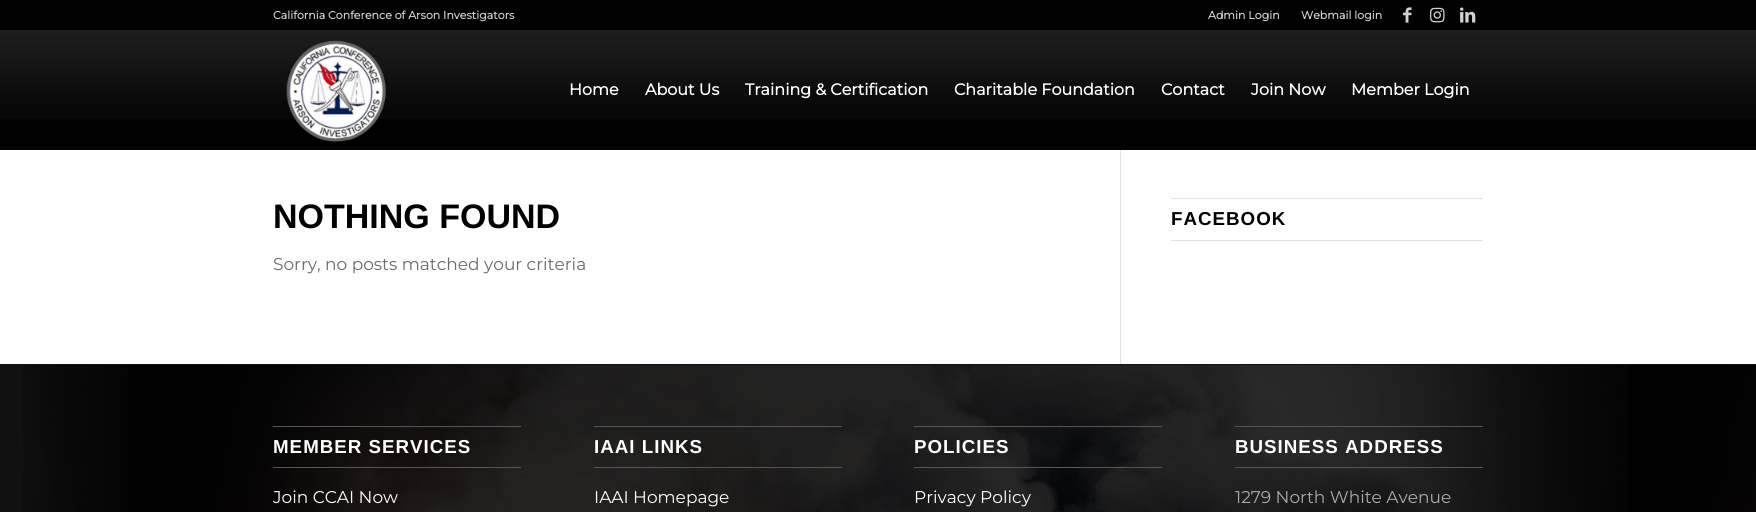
#include <cairo.h>
#include <math.h>
#include <stddef.h>


static void set_color(cairo_t *cr, unsigned color) {
    cairo_set_source_rgb(cr, (color >> 16) / 255.0, (color >> 8 & 255) / 255.0, (color & 255) / 255.0);
}

static void draw_text(cairo_t *cr, double x, double y, const char *s, const char *family, double size, int italic, int bold, unsigned color) {
    cairo_select_font_face(cr, family, italic ? CAIRO_FONT_SLANT_ITALIC : CAIRO_FONT_SLANT_NORMAL,
        bold ? CAIRO_FONT_WEIGHT_BOLD : CAIRO_FONT_WEIGHT_NORMAL);
    cairo_set_font_size(cr, size);
    set_color(cr, color);
    cairo_move_to(cr, x, y);
    cairo_show_text(cr, s);
}

static void draw_spaced(cairo_t *cr, double x, double y, const char *s, double letter, double word) {
    cairo_move_to(cr, x, y);
    while (*s) {
        char ch[5] = {0};
        int n = 0;
        do ch[n++] = *s++; while ((*s & 0xC0) == 0x80);
        cairo_show_text(cr, ch);
        cairo_rel_move_to(cr, letter + word * (*ch == ' '), 0);
    }
}

static void fill_rect(cairo_t *cr, double x, double y, double w, double h, unsigned color) {
    set_color(cr, color);
    cairo_rectangle(cr, x, y, w, h);
    cairo_fill(cr);
}

static void draw_image(cairo_t *cr, const char *path, double x, double y, double w, double h) {
    cairo_surface_t *image = cairo_image_surface_create_from_png(path);
    cairo_save(cr);
    cairo_set_source_surface(cr, image, x, y);
    cairo_rectangle(cr, x, y, w, h);
    cairo_fill(cr);
    cairo_restore(cr);
    cairo_surface_destroy(image);
}

int main(void) {
    cairo_surface_t *surface = cairo_image_surface_create(CAIRO_FORMAT_RGB24, 1756, 512);
    cairo_t *cr = cairo_create(surface);
    cairo_font_options_t *options = cairo_font_options_create();
    cairo_font_options_set_hint_metrics(options, CAIRO_HINT_METRICS_OFF);
    cairo_font_options_set_hint_style(options, CAIRO_HINT_STYLE_NONE);
    cairo_set_font_options(cr, options);
    cairo_set_miter_limit(cr, 4);
    set_color(cr, 0xFFFFFF);
    cairo_paint(cr);
    fill_rect(cr, 1120, 148, 1, 216, 0xE1E1E1);
    fill_rect(cr, 0, 0, 1756, 150, 0x000000);
    draw_image(cr, "assets/img1.png", 0, 30, 1756, 89);
    draw_text(cr, 273, 19, "California Conference of Arson Investigators", "Montserrat", 11, 0, 1, 0xD1D1D1);
    draw_text(cr, 1208, 19, "Admin Login", "Montserrat", 11, 0, 1, 0xD1D1D1);
    draw_text(cr, 1301, 19, "Webmail login", "Montserrat", 11, 0, 1, 0xD1D1D1);
    draw_image(cr, "assets/img2.png", 1403, 7, 9, 16);
    draw_image(cr, "assets/img3.png", 1430, 7, 15, 16);
    draw_image(cr, "assets/img4.png", 1460, 7, 16, 16);
    draw_image(cr, "assets/img5.png", 286, 40, 100, 102);
    draw_text(cr, 569, 95, "Home", "Montserrat", 16, 0, 1, 0xFFFFFF);
    draw_text(cr, 645, 95, "About Us", "Montserrat", 16, 0, 1, 0xFFFFFF);
    draw_text(cr, 745, 95, "Training & Certification", "Montserrat", 16, 0, 1, 0xFFFFFF);
    draw_text(cr, 954, 95, "Charitable Foundation", "Montserrat", 16, 0, 1, 0xFFFFFF);
    draw_text(cr, 1161, 95, "Contact", "Montserrat", 16, 0, 1, 0xFFFFFF);
    draw_text(cr, 1251, 95, "Join Now", "Montserrat", 16, 0, 1, 0xFFFFFF);
    draw_text(cr, 1351, 95, "Member Login", "Montserrat", 16, 0, 1, 0xFFFFFF);
    draw_text(cr, 273, 228, "NOTHING FOUND", "Liberation Sans", 34, 0, 1, 0x000000);
    draw_text(cr, 273, 270, "Sorry, no posts matched your criteria", "Montserrat Thin", 17, 0, 0, 0x696969);
    fill_rect(cr, 1171, 198, 312, 1, 0xE1E1E1);
    fill_rect(cr, 1171, 240, 312, 1, 0xE1E1E1);
    cairo_select_font_face(cr, "Liberation Sans", CAIRO_FONT_SLANT_NORMAL, CAIRO_FONT_WEIGHT_BOLD);
    cairo_set_font_size(cr, 18.75);
    set_color(cr, 0x000000);
    draw_spaced(cr, 1171, 225, "FACEBOOK", 1, 0);
    fill_rect(cr, 0, 365, 23, 147, 0x111111);
    draw_image(cr, "assets/img6.png", 23, 365, 1733, 147);
    fill_rect(cr, 0, 364, 1756, 1, 0x111111);
    fill_rect(cr, 273, 426, 248, 1, 0x555555);
    fill_rect(cr, 273, 467, 248, 1, 0x555555);
    set_color(cr, 0xFFFFFF);
    draw_spaced(cr, 273, 453, "MEMBER SERVICES", 1, 0);
    draw_text(cr, 273, 503, "Join CCAI Now", "Montserrat Thin", 17, 0, 0, 0xFFFFFF);
    fill_rect(cr, 594, 426, 248, 1, 0x555555);
    fill_rect(cr, 594, 467, 248, 1, 0x555555);
    cairo_select_font_face(cr, "Liberation Sans", CAIRO_FONT_SLANT_NORMAL, CAIRO_FONT_WEIGHT_BOLD);
    cairo_set_font_size(cr, 18.75);
    set_color(cr, 0xFFFFFF);
    draw_spaced(cr, 594, 453, "IAAI LINKS", 1, 0);
    draw_text(cr, 594, 503, "IAAI Homepage", "Montserrat Thin", 17, 0, 0, 0xFFFFFF);
    fill_rect(cr, 914, 426, 248, 1, 0x555555);
    fill_rect(cr, 914, 467, 248, 1, 0x555555);
    cairo_select_font_face(cr, "Liberation Sans", CAIRO_FONT_SLANT_NORMAL, CAIRO_FONT_WEIGHT_BOLD);
    cairo_set_font_size(cr, 18.75);
    set_color(cr, 0xFFFFFF);
    draw_spaced(cr, 914, 453, "POLICIES", 1, 0);
    draw_text(cr, 914, 503, "Privacy Policy", "Montserrat Thin", 17, 0, 0, 0xFFFFFF);
    fill_rect(cr, 1235, 426, 248, 1, 0x555555);
    fill_rect(cr, 1235, 467, 248, 1, 0x555555);
    cairo_select_font_face(cr, "Liberation Sans", CAIRO_FONT_SLANT_NORMAL, CAIRO_FONT_WEIGHT_BOLD);
    cairo_set_font_size(cr, 18.75);
    set_color(cr, 0xFFFFFF);
    draw_spaced(cr, 1235, 453, "BUSINESS ADDRESS", 1, 0);
    draw_text(cr, 1235, 503, "1279 North White Avenue", "Montserrat Thin", 17, 0, 0, 0xAAAAAA);
    cairo_surface_write_to_png(surface, "output.png");
    cairo_font_options_destroy(options);
    cairo_destroy(cr);
    cairo_surface_destroy(surface);
    return 0;
}
